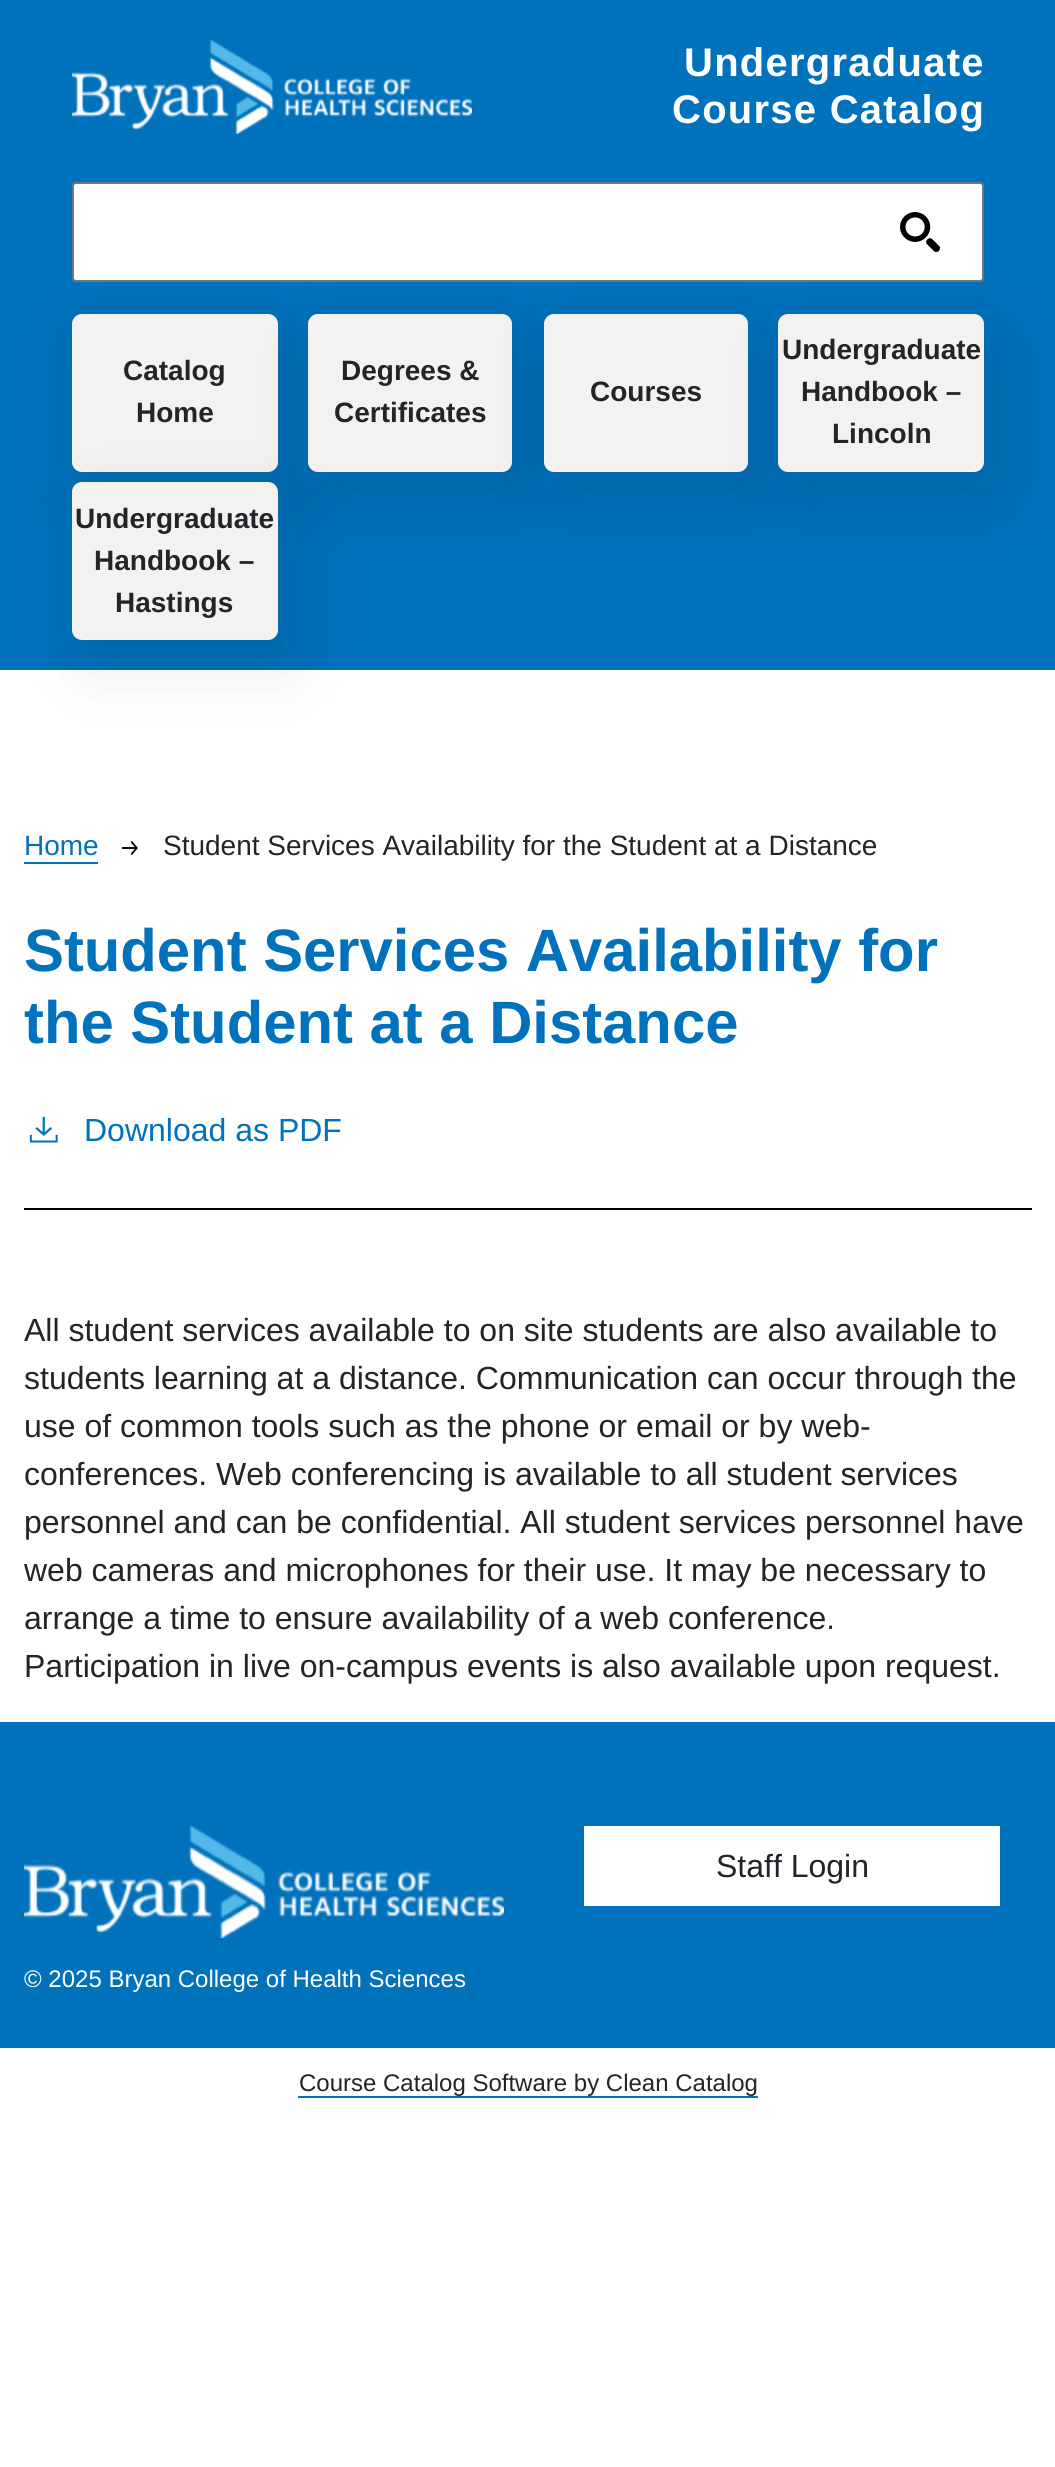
#include <cairo.h>
#include <math.h>
#include <stddef.h>


static void set_color(cairo_t *cr, unsigned color) {
    cairo_set_source_rgb(cr, (color >> 16) / 255.0, (color >> 8 & 255) / 255.0, (color & 255) / 255.0);
}

static void draw_text(cairo_t *cr, double x, double y, const char *s, const char *family, double size, int italic, int bold, unsigned color) {
    cairo_select_font_face(cr, family, italic ? CAIRO_FONT_SLANT_ITALIC : CAIRO_FONT_SLANT_NORMAL,
        bold ? CAIRO_FONT_WEIGHT_BOLD : CAIRO_FONT_WEIGHT_NORMAL);
    cairo_set_font_size(cr, size);
    set_color(cr, color);
    cairo_move_to(cr, x, y);
    cairo_show_text(cr, s);
}

static void draw_spaced(cairo_t *cr, double x, double y, const char *s, double letter, double word) {
    cairo_move_to(cr, x, y);
    while (*s) {
        char ch[5] = {0};
        int n = 0;
        do ch[n++] = *s++; while ((*s & 0xC0) == 0x80);
        cairo_show_text(cr, ch);
        cairo_rel_move_to(cr, letter + word * (*ch == ' '), 0);
    }
}

static void fill_rect(cairo_t *cr, double x, double y, double w, double h, unsigned color) {
    set_color(cr, color);
    cairo_rectangle(cr, x, y, w, h);
    cairo_fill(cr);
}

static void rounded_rect(cairo_t *cr, double x, double y, double w, double h, double r) {
    cairo_new_sub_path(cr);
    cairo_arc(cr, x + w - r, y + h - r, r, 0, M_PI / 2);
    cairo_arc(cr, x + r, y + h - r, r, M_PI / 2, M_PI);
    cairo_arc(cr, x + r, y + r, r, M_PI, 1.5 * M_PI);
    cairo_arc(cr, x + w - r, y + r, r, 1.5 * M_PI, 2 * M_PI);
    cairo_close_path(cr);
}

static void draw_shadow(cairo_t *cr, double x, double y, double w, double h, double r, double blur, double alpha) {
    cairo_push_group_with_content(cr, CAIRO_CONTENT_ALPHA);
    cairo_set_operator(cr, CAIRO_OPERATOR_SOURCE);
    for (int i = 15; i >= -15 && fmin(w, h) + blur * i / 3 > 0; i -= 2) {
        double e = blur * i / 6;
        cairo_set_source_rgba(cr, 0, 0, 0, alpha * erfc((i - 1) / 8.5) / 2);
        rounded_rect(cr, x - e, y - e, w + 2 * e, h + 2 * e, fmax(0, fmin(r + e + blur * .6, fmin(w, h) / 2 + e)));
        cairo_fill(cr);
    }
    cairo_pattern_t *soft = cairo_pop_group(cr);
    cairo_mask(cr, soft);
    cairo_pattern_destroy(soft);
}

static void draw_image(cairo_t *cr, const char *path, double x, double y, double w, double h) {
    cairo_surface_t *image = cairo_image_surface_create_from_png(path);
    cairo_save(cr);
    cairo_set_source_surface(cr, image, x, y);
    cairo_rectangle(cr, x, y, w, h);
    cairo_fill(cr);
    cairo_restore(cr);
    cairo_surface_destroy(image);
}

int main(void) {
    cairo_surface_t *surface = cairo_image_surface_create(CAIRO_FORMAT_RGB24, 1055, 2467);
    cairo_t *cr = cairo_create(surface);
    cairo_font_options_t *options = cairo_font_options_create();
    cairo_font_options_set_hint_metrics(options, CAIRO_HINT_METRICS_OFF);
    cairo_font_options_set_hint_style(options, CAIRO_HINT_STYLE_NONE);
    cairo_set_font_options(cr, options);
    cairo_set_miter_limit(cr, 4);
    set_color(cr, 0xFFFFFF);
    cairo_paint(cr);
    fill_rect(cr, 0, 0, 1055, 670, 0x0071BB);
    draw_image(cr, "assets/img1.png", 72, 40, 400, 94);
    cairo_select_font_face(cr, "Liberation Sans", CAIRO_FONT_SLANT_NORMAL, CAIRO_FONT_WEIGHT_BOLD);
    cairo_set_font_size(cr, 40);
    set_color(cr, 0xFFFFFF);
    draw_spaced(cr, 684, 76, "Undergraduate", 1.25, 0);
    draw_spaced(cr, 672, 123, "Course Catalog", 1.25, 0);
    set_color(cr, 0x000000);
    draw_shadow(cr, 86, 338, 206, 158, 10, 35, 0.1);
    set_color(cr, 0xF3F2F0);
    rounded_rect(cr, 72, 314, 206, 158, 10);
    cairo_fill(cr);
    set_color(cr, 0x000000);
    draw_shadow(cr, 322, 338, 204, 158, 10, 35, 0.1);
    set_color(cr, 0xF3F2F0);
    rounded_rect(cr, 308, 314, 204, 158, 10);
    cairo_fill(cr);
    set_color(cr, 0x000000);
    draw_shadow(cr, 558, 338, 204, 158, 10, 35, 0.1);
    set_color(cr, 0xF3F2F0);
    rounded_rect(cr, 544, 314, 204, 158, 10);
    cairo_fill(cr);
    set_color(cr, 0x000000);
    draw_shadow(cr, 792, 338, 206, 158, 10, 35, 0.1);
    set_color(cr, 0xFFFFFF);
    rounded_rect(cr, 73, 183, 910, 98, 3);
    cairo_fill_preserve(cr);
    set_color(cr, 0x767676);
    cairo_stroke(cr);
    draw_image(cr, "assets/img2.png", 900, 212, 40, 40);
    draw_text(cr, 123, 380, "Catalog", "Liberation Sans", 28, 0, 1, 0x212529);
    draw_text(cr, 136, 422, "Home", "Liberation Sans", 28, 0, 1, 0x212529);
    draw_text(cr, 341, 380, "Degrees &", "Liberation Sans", 28, 0, 1, 0x212529);
    draw_text(cr, 334, 422, "Certificates", "Liberation Sans", 28, 0, 1, 0x212529);
    draw_text(cr, 590, 401, "Courses", "Liberation Sans", 28, 0, 1, 0x212529);
    set_color(cr, 0xF3F2F0);
    rounded_rect(cr, 778, 314, 206, 158, 10);
    cairo_fill(cr);
    draw_text(cr, 782, 359, "Undergraduate", "Liberation Sans", 28, 0, 1, 0x212529);
    draw_text(cr, 801, 401, "Handbook –", "Liberation Sans", 28, 0, 1, 0x212529);
    draw_text(cr, 832, 443, "Lincoln", "Liberation Sans", 28, 0, 1, 0x212529);
    set_color(cr, 0x000000);
    draw_shadow(cr, 86, 506, 206, 158, 10, 35, 0.1);
    set_color(cr, 0xF3F2F0);
    rounded_rect(cr, 72, 482, 206, 158, 10);
    cairo_fill(cr);
    draw_text(cr, 75, 528, "Undergraduate", "Liberation Sans", 28, 0, 1, 0x212529);
    draw_text(cr, 94, 570, "Handbook –", "Liberation Sans", 28, 0, 1, 0x212529);
    draw_text(cr, 115, 612, "Hastings", "Liberation Sans", 28, 0, 1, 0x212529);
    fill_rect(cr, 24, 1208, 1008, 2, 0x000000);
    draw_text(cr, 24, 855, "Home", "Liberation Sans", 28, 0, 0, 0x0071BB);
    fill_rect(cr, 24, 862, 74, 2, 0x0071BB);
    draw_image(cr, "assets/img3.png", 122, 841, 16, 14);
    draw_text(cr, 163, 855, "Student Services Availability for the Student at a Distance", "Liberation Sans", 28, 0, 0, 0x212529);
    draw_text(cr, 24, 971, "Student Services Availability for", "Liberation Sans", 59.8, 0, 1, 0x0071BB);
    draw_text(cr, 24, 1043, "the Student at a Distance", "Liberation Sans", 59.8, 0, 1, 0x0071BB);
    draw_image(cr, "assets/img4.png", 29, 1116, 29, 27);
    draw_text(cr, 84, 1141, "Download as PDF", "Liberation Sans", 32, 0, 0, 0x0071BB);
    draw_text(cr, 24, 1341, "All student services available to on site students are also available to", "Liberation Sans", 32, 0, 0, 0x212529);
    draw_text(cr, 24, 1389, "students learning at a distance. Communication can occur through the", "Liberation Sans", 32, 0, 0, 0x212529);
    draw_text(cr, 24, 1437, "use of common tools such as the phone or email or by web-", "Liberation Sans", 32, 0, 0, 0x212529);
    draw_text(cr, 24, 1485, "conferences. Web conferencing is available to all student services", "Liberation Sans", 32, 0, 0, 0x212529);
    draw_text(cr, 24, 1533, "personnel and can be confidential. All student services personnel have", "Liberation Sans", 32, 0, 0, 0x212529);
    draw_text(cr, 24, 1581, "web cameras and microphones for their use. It may be necessary to", "Liberation Sans", 32, 0, 0, 0x212529);
    draw_text(cr, 24, 1629, "arrange a time to ensure availability of a web conference.", "Liberation Sans", 32, 0, 0, 0x212529);
    draw_text(cr, 24, 1677, "Participation in live on-campus events is also available upon request.", "Liberation Sans", 32, 0, 0, 0x212529);
    fill_rect(cr, 0, 1722, 1055, 326, 0x0071BB);
    draw_image(cr, "assets/img5.png", 24, 1826, 480, 112);
    fill_rect(cr, 584, 1826, 416, 80, 0xFFFFFF);
    draw_text(cr, 716, 1877, "Staff Login", "Liberation Sans", 32, 0, 0, 0x212529);
    draw_text(cr, 24, 1987, "© 2025 Bryan College of Health Sciences", "Liberation Sans", 24, 0, 0, 0xFFFFFF);
    draw_text(cr, 299, 2091, "Course Catalog Software by Clean Catalog", "Liberation Sans", 24, 0, 0, 0x212529);
    fill_rect(cr, 298, 2096, 460, 2, 0x0071BB);
    cairo_surface_write_to_png(surface, "output.png");
    cairo_font_options_destroy(options);
    cairo_destroy(cr);
    cairo_surface_destroy(surface);
    return 0;
}
